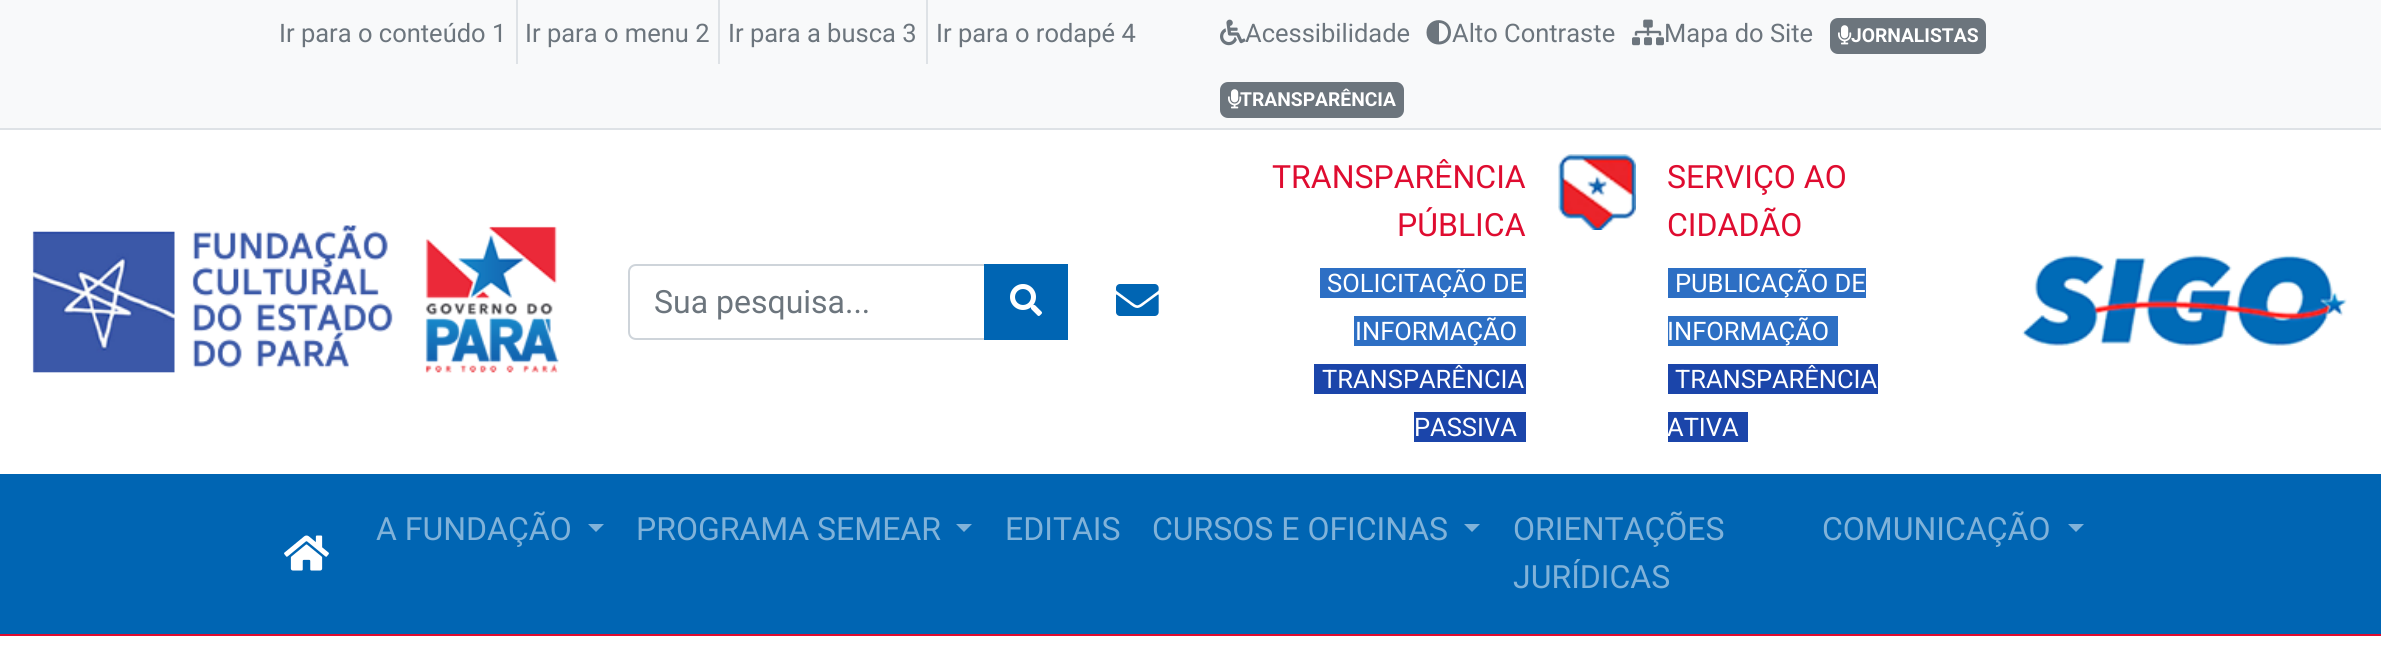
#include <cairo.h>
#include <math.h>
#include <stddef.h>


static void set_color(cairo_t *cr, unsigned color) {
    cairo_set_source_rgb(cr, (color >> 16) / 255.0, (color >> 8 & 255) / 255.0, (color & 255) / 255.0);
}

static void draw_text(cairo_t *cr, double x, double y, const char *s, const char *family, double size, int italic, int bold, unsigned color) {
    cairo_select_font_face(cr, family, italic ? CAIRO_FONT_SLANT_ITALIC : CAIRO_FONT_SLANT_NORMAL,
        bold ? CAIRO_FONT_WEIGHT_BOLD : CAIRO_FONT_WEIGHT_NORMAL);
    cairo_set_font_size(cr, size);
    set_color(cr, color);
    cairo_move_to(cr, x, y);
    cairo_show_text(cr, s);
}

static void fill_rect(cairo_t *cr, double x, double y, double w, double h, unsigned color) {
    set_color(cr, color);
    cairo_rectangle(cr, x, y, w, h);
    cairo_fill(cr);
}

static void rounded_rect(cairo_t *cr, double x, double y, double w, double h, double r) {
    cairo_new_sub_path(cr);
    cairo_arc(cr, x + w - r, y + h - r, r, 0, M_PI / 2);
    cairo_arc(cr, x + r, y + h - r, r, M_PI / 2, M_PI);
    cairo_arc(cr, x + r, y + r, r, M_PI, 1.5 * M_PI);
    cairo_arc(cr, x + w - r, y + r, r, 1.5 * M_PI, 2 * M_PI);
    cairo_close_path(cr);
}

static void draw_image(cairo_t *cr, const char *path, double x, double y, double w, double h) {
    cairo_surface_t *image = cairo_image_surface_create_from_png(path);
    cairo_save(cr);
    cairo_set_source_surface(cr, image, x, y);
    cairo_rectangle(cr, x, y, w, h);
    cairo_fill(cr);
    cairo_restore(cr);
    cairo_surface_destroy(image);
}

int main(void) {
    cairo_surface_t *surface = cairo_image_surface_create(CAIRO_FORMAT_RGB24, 2381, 666);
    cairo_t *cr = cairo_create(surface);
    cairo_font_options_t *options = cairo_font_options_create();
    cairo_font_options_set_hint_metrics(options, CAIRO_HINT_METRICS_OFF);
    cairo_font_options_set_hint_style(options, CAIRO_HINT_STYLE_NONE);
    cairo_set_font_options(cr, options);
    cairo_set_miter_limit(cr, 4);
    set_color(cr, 0xFFFFFF);
    cairo_paint(cr);
    fill_rect(cr, 0, 0, 2381, 128, 0xF8F9FA);
    fill_rect(cr, 0, 128, 2381, 2, 0xDEE2E6);
    fill_rect(cr, 516, 0, 2, 64, 0xDEE2E6);
    draw_text(cr, 279, 42, "Ir para o conteúdo 1", "Roboto", 25.5, 0, 0, 0x6C757D);
    fill_rect(cr, 718, 0, 2, 64, 0xDEE2E6);
    draw_text(cr, 525, 42, "Ir para o menu 2", "Roboto", 25.5, 0, 0, 0x6C757D);
    fill_rect(cr, 926, 0, 2, 64, 0xDEE2E6);
    draw_text(cr, 728, 42, "Ir para a busca 3", "Roboto", 25.5, 0, 0, 0x6C757D);
    draw_text(cr, 936, 42, "Ir para o rodapé 4", "Roboto", 25.5, 0, 0, 0x6C757D);
    draw_image(cr, "assets/img1.png", 1220, 19, 26, 27);
    draw_text(cr, 1245, 42, "Acessibilidade", "Roboto", 25.5, 0, 0, 0x6C757D);
    cairo_new_path(cr);
    cairo_move_to(cr, 1426.5, 32.5);
    cairo_curve_to(cr, 1426.5, 48.5, 1451, 48.5, 1451, 32.5);
    cairo_curve_to(cr, 1451, 16, 1426.5, 16, 1426.5, 32.5);
    cairo_close_path(cr);
    cairo_move_to(cr, 1439, 41.5);
    cairo_line_to(cr, 1439, 23);
    cairo_curve_to(cr, 1451, 23, 1451, 41.5, 1439, 41.5);
    cairo_close_path(cr);
    cairo_fill(cr);
    draw_text(cr, 1452, 42, "Alto Contraste", "Roboto", 25.5, 0, 0, 0x6C757D);
    draw_image(cr, "assets/img2.png", 1632, 19, 32, 27);
    draw_text(cr, 1664, 42, "Mapa do Site", "Roboto", 25.5, 0, 0, 0x6C757D);
    rounded_rect(cr, 1830, 18, 156, 36, 8);
    cairo_fill(cr);
    draw_image(cr, "assets/img3.png", 1838, 25, 14, 20);
    draw_text(cr, 1851, 42, "JORNALISTAS", "Roboto", 19.25, 0, 1, 0xFFFFFF);
    set_color(cr, 0x6C757D);
    rounded_rect(cr, 1220, 82, 184, 36, 8);
    cairo_fill(cr);
    draw_image(cr, "assets/img3.png", 1228, 89, 14, 20);
    draw_text(cr, 1240, 106, "TRANSPARÊNCIA", "Roboto", 19.25, 0, 1, 0xFFFFFF);
    draw_image(cr, "assets/img4.png", 32, 225, 527, 148);
    cairo_new_path(cr);
    cairo_move_to(cr, 636, 265);
    cairo_line_to(cr, 985, 265);
    cairo_line_to(cr, 985, 339);
    cairo_line_to(cr, 636, 339);
    cairo_curve_to(cr, 632, 339, 629, 336, 629, 332);
    cairo_line_to(cr, 629, 272);
    cairo_curve_to(cr, 629, 268, 632, 265, 636, 265);
    cairo_close_path(cr);
    set_color(cr, 0xCED4DA);
    cairo_stroke(cr);
    draw_text(cr, 654, 313, "Sua pesquisa...", "Roboto", 32, 0, 0, 0x6C757D);
    fill_rect(cr, 984, 264, 84, 76, 0x0065B3);
    draw_image(cr, "assets/img5.png", 1010, 284, 32, 32);
    draw_image(cr, "assets/img6.png", 1116, 284, 43, 32);
    draw_text(cr, 1272, 188, "TRANSPARÊNCIA", "Roboto", 32, 0, 0, 0xDF0C30);
    draw_text(cr, 1397, 236, "PÚBLICA", "Roboto", 32, 0, 0, 0xDF0C30);
    fill_rect(cr, 1320, 268, 206, 30, 0x2D6FC4);
    draw_text(cr, 1327, 292, "SOLICITAÇÃO DE", "Roboto", 25.5, 0, 0, 0xFFFFFF);
    fill_rect(cr, 1354, 316, 172, 30, 0x2D6FC4);
    draw_text(cr, 1355, 340, "INFORMAÇÃO", "Roboto", 25.5, 0, 0, 0xFFFFFF);
    fill_rect(cr, 1314, 364, 212, 30, 0x1B45AA);
    draw_text(cr, 1322, 388, "TRANSPARÊNCIA", "Roboto", 25.5, 0, 0, 0xFFFFFF);
    fill_rect(cr, 1414, 412, 112, 30, 0x1B45AA);
    draw_text(cr, 1414, 436, "PASSIVA", "Roboto", 25.5, 0, 0, 0xFFFFFF);
    draw_image(cr, "assets/img7.png", 1558, 154, 78, 76);
    draw_text(cr, 1667, 188, "SERVIÇO AO", "Roboto", 32, 0, 0, 0xDF0C30);
    draw_text(cr, 1667, 236, "CIDADÃO", "Roboto", 32, 0, 0, 0xDF0C30);
    fill_rect(cr, 1668, 268, 198, 30, 0x2D6FC4);
    draw_text(cr, 1675, 292, "PUBLICAÇÃO DE", "Roboto", 25.5, 0, 0, 0xFFFFFF);
    fill_rect(cr, 1668, 316, 170, 30, 0x2D6FC4);
    draw_text(cr, 1667, 340, "INFORMAÇÃO", "Roboto", 25.5, 0, 0, 0xFFFFFF);
    fill_rect(cr, 1668, 364, 210, 30, 0x1B45AA);
    draw_text(cr, 1675, 388, "TRANSPARÊNCIA", "Roboto", 25.5, 0, 0, 0xFFFFFF);
    fill_rect(cr, 1668, 412, 80, 30, 0x1B45AA);
    draw_text(cr, 1667, 436, "ATIVA", "Roboto", 25.5, 0, 0, 0xFFFFFF);
    draw_image(cr, "assets/img8.png", 2022, 255, 325, 91);
    fill_rect(cr, 0, 474, 2381, 160, 0x0065B3);
    fill_rect(cr, 0, 634, 2381, 2, 0xDF0C30);
    draw_image(cr, "assets/img9.png", 284, 535, 45, 36);
    draw_text(cr, 376, 540, "A FUNDAÇÃO", "Roboto", 32, 0, 0, 0x80B2D9);
    cairo_new_path(cr);
    cairo_move_to(cr, 588, 524);
    cairo_line_to(cr, 604, 524);
    cairo_line_to(cr, 596, 532);
    cairo_close_path(cr);
    cairo_fill(cr);
    draw_text(cr, 636, 540, "PROGRAMA SEMEAR", "Roboto", 32, 0, 0, 0x80B2D9);
    cairo_new_path(cr);
    cairo_move_to(cr, 956, 524);
    cairo_line_to(cr, 972, 524);
    cairo_line_to(cr, 964, 532);
    cairo_close_path(cr);
    cairo_fill(cr);
    draw_text(cr, 1005, 540, "EDITAIS", "Roboto", 32, 0, 0, 0x80B2D9);
    draw_text(cr, 1152, 540, "CURSOS E OFICINAS", "Roboto", 32, 0, 0, 0x80B2D9);
    cairo_new_path(cr);
    cairo_move_to(cr, 1464, 524);
    cairo_line_to(cr, 1480, 524);
    cairo_line_to(cr, 1472, 532);
    cairo_close_path(cr);
    cairo_fill(cr);
    draw_text(cr, 1513, 540, "ORIENTAÇÕES", "Roboto", 32, 0, 0, 0x80B2D9);
    draw_text(cr, 1513, 588, "JURÍDICAS", "Roboto", 32, 0, 0, 0x80B2D9);
    draw_text(cr, 1822, 540, "COMUNICAÇÃO", "Roboto", 32, 0, 0, 0x80B2D9);
    cairo_new_path(cr);
    cairo_move_to(cr, 2068, 524);
    cairo_line_to(cr, 2084, 524);
    cairo_line_to(cr, 2076, 532);
    cairo_close_path(cr);
    cairo_fill(cr);
    cairo_surface_write_to_png(surface, "output.png");
    cairo_font_options_destroy(options);
    cairo_destroy(cr);
    cairo_surface_destroy(surface);
    return 0;
}
